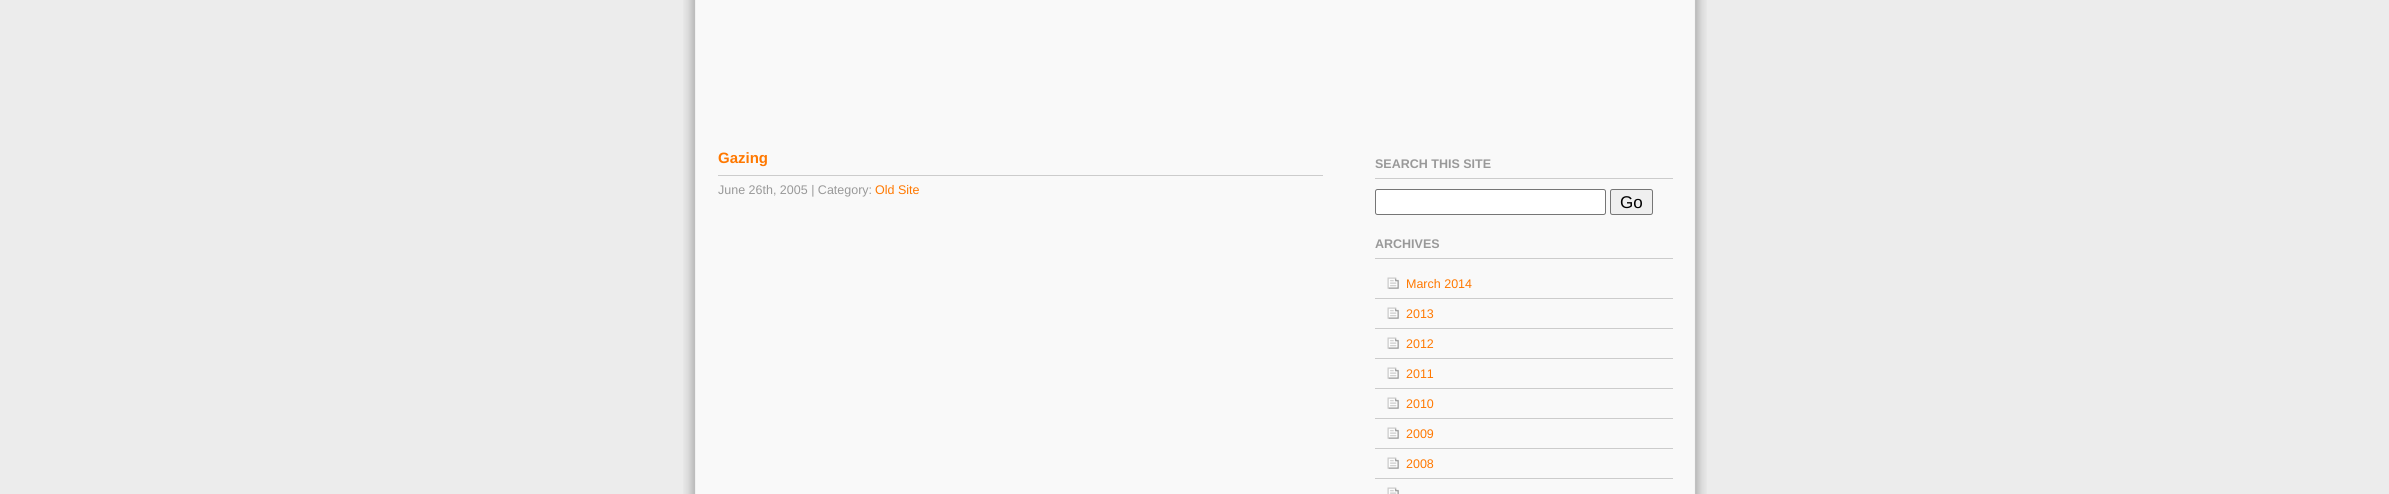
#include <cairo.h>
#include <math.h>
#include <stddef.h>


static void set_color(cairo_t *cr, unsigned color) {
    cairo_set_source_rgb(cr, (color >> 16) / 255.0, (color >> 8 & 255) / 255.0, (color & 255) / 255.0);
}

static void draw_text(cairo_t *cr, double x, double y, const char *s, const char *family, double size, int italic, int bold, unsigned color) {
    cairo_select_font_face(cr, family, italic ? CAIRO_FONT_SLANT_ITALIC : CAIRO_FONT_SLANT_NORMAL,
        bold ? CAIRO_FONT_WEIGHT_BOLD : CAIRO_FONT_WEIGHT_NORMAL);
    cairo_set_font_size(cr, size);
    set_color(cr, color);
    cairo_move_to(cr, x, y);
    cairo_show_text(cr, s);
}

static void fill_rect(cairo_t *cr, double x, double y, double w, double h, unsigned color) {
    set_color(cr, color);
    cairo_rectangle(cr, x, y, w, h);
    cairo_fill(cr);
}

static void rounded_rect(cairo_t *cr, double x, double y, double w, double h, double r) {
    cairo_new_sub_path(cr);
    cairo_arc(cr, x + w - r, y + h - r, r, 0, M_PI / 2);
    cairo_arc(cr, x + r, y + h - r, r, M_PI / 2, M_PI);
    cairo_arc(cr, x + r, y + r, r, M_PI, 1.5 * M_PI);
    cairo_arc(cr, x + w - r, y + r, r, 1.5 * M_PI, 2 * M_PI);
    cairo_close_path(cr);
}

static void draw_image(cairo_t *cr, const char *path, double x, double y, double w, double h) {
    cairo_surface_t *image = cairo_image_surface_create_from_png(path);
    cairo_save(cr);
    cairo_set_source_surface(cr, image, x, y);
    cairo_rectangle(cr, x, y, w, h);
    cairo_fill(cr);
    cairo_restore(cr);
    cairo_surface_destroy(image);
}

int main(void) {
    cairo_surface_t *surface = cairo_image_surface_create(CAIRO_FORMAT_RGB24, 2389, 494);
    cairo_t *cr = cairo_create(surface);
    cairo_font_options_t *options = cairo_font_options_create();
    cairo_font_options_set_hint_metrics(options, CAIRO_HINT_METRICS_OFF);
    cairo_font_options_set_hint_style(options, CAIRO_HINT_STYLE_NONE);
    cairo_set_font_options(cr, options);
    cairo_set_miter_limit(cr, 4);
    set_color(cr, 0xECECEC);
    cairo_paint(cr);
    draw_image(cr, "assets/img1.png", 683, 0, 1024, 494);
    draw_text(cr, 718, 163, "Gazing", "Liberation Sans", 15, 0, 1, 0xFF7800);
    fill_rect(cr, 718, 175, 605, 1, 0xCCCCCC);
    draw_text(cr, 718, 194, "June 26th, 2005 | Category:", "Liberation Sans", 12.5, 0, 0, 0x999999);
    draw_text(cr, 875, 194, "Old Site", "Liberation Sans", 12.5, 0, 0, 0xFF7800);
    fill_rect(cr, 1375, 178, 298, 1, 0xCCCCCC);
    draw_text(cr, 1375, 168, "SEARCH THIS SITE", "Liberation Sans", 12.5, 0, 1, 0x999999);
    set_color(cr, 0xFFFFFF);
    rounded_rect(cr, 1375.5, 189.5, 230, 25, 2);
    cairo_fill_preserve(cr);
    set_color(cr, 0x767676);
    cairo_set_line_width(cr, 1);
    cairo_stroke(cr);
    set_color(cr, 0xEFEFEF);
    rounded_rect(cr, 1610.5, 189.5, 42, 25, 2);
    cairo_fill_preserve(cr);
    set_color(cr, 0x767676);
    cairo_stroke(cr);
    draw_text(cr, 1620, 208, "Go", "Liberation Sans", 17, 0, 0, 0x000000);
    fill_rect(cr, 1375, 258, 298, 1, 0xCCCCCC);
    draw_text(cr, 1375, 248, "ARCHIVES", "Liberation Sans", 12.5, 0, 1, 0x999999);
    draw_image(cr, "assets/img2.png", 1387, 277, 12, 12);
    fill_rect(cr, 1375, 298, 298, 1, 0xCCCCCC);
    draw_text(cr, 1406, 288, "March 2014", "Liberation Sans", 12.5, 0, 0, 0xFF7800);
    draw_image(cr, "assets/img2.png", 1387, 307, 12, 12);
    fill_rect(cr, 1375, 328, 298, 1, 0xCCCCCC);
    draw_text(cr, 1406, 318, "2013", "Liberation Sans", 12.5, 0, 0, 0xFF7800);
    draw_image(cr, "assets/img2.png", 1387, 337, 12, 12);
    fill_rect(cr, 1375, 358, 298, 1, 0xCCCCCC);
    draw_text(cr, 1406, 348, "2012", "Liberation Sans", 12.5, 0, 0, 0xFF7800);
    draw_image(cr, "assets/img2.png", 1387, 367, 12, 12);
    fill_rect(cr, 1375, 388, 298, 1, 0xCCCCCC);
    draw_text(cr, 1406, 378, "2011", "Liberation Sans", 12.5, 0, 0, 0xFF7800);
    draw_image(cr, "assets/img2.png", 1387, 397, 12, 12);
    fill_rect(cr, 1375, 418, 298, 1, 0xCCCCCC);
    draw_text(cr, 1406, 408, "2010", "Liberation Sans", 12.5, 0, 0, 0xFF7800);
    draw_image(cr, "assets/img2.png", 1387, 427, 12, 12);
    fill_rect(cr, 1375, 448, 298, 1, 0xCCCCCC);
    draw_text(cr, 1406, 438, "2009", "Liberation Sans", 12.5, 0, 0, 0xFF7800);
    draw_image(cr, "assets/img2.png", 1387, 457, 12, 12);
    fill_rect(cr, 1375, 478, 298, 1, 0xCCCCCC);
    draw_text(cr, 1406, 468, "2008", "Liberation Sans", 12.5, 0, 0, 0xFF7800);
    draw_image(cr, "assets/img3.png", 1387, 487, 12, 7);
    cairo_surface_write_to_png(surface, "output.png");
    cairo_font_options_destroy(options);
    cairo_destroy(cr);
    cairo_surface_destroy(surface);
    return 0;
}
